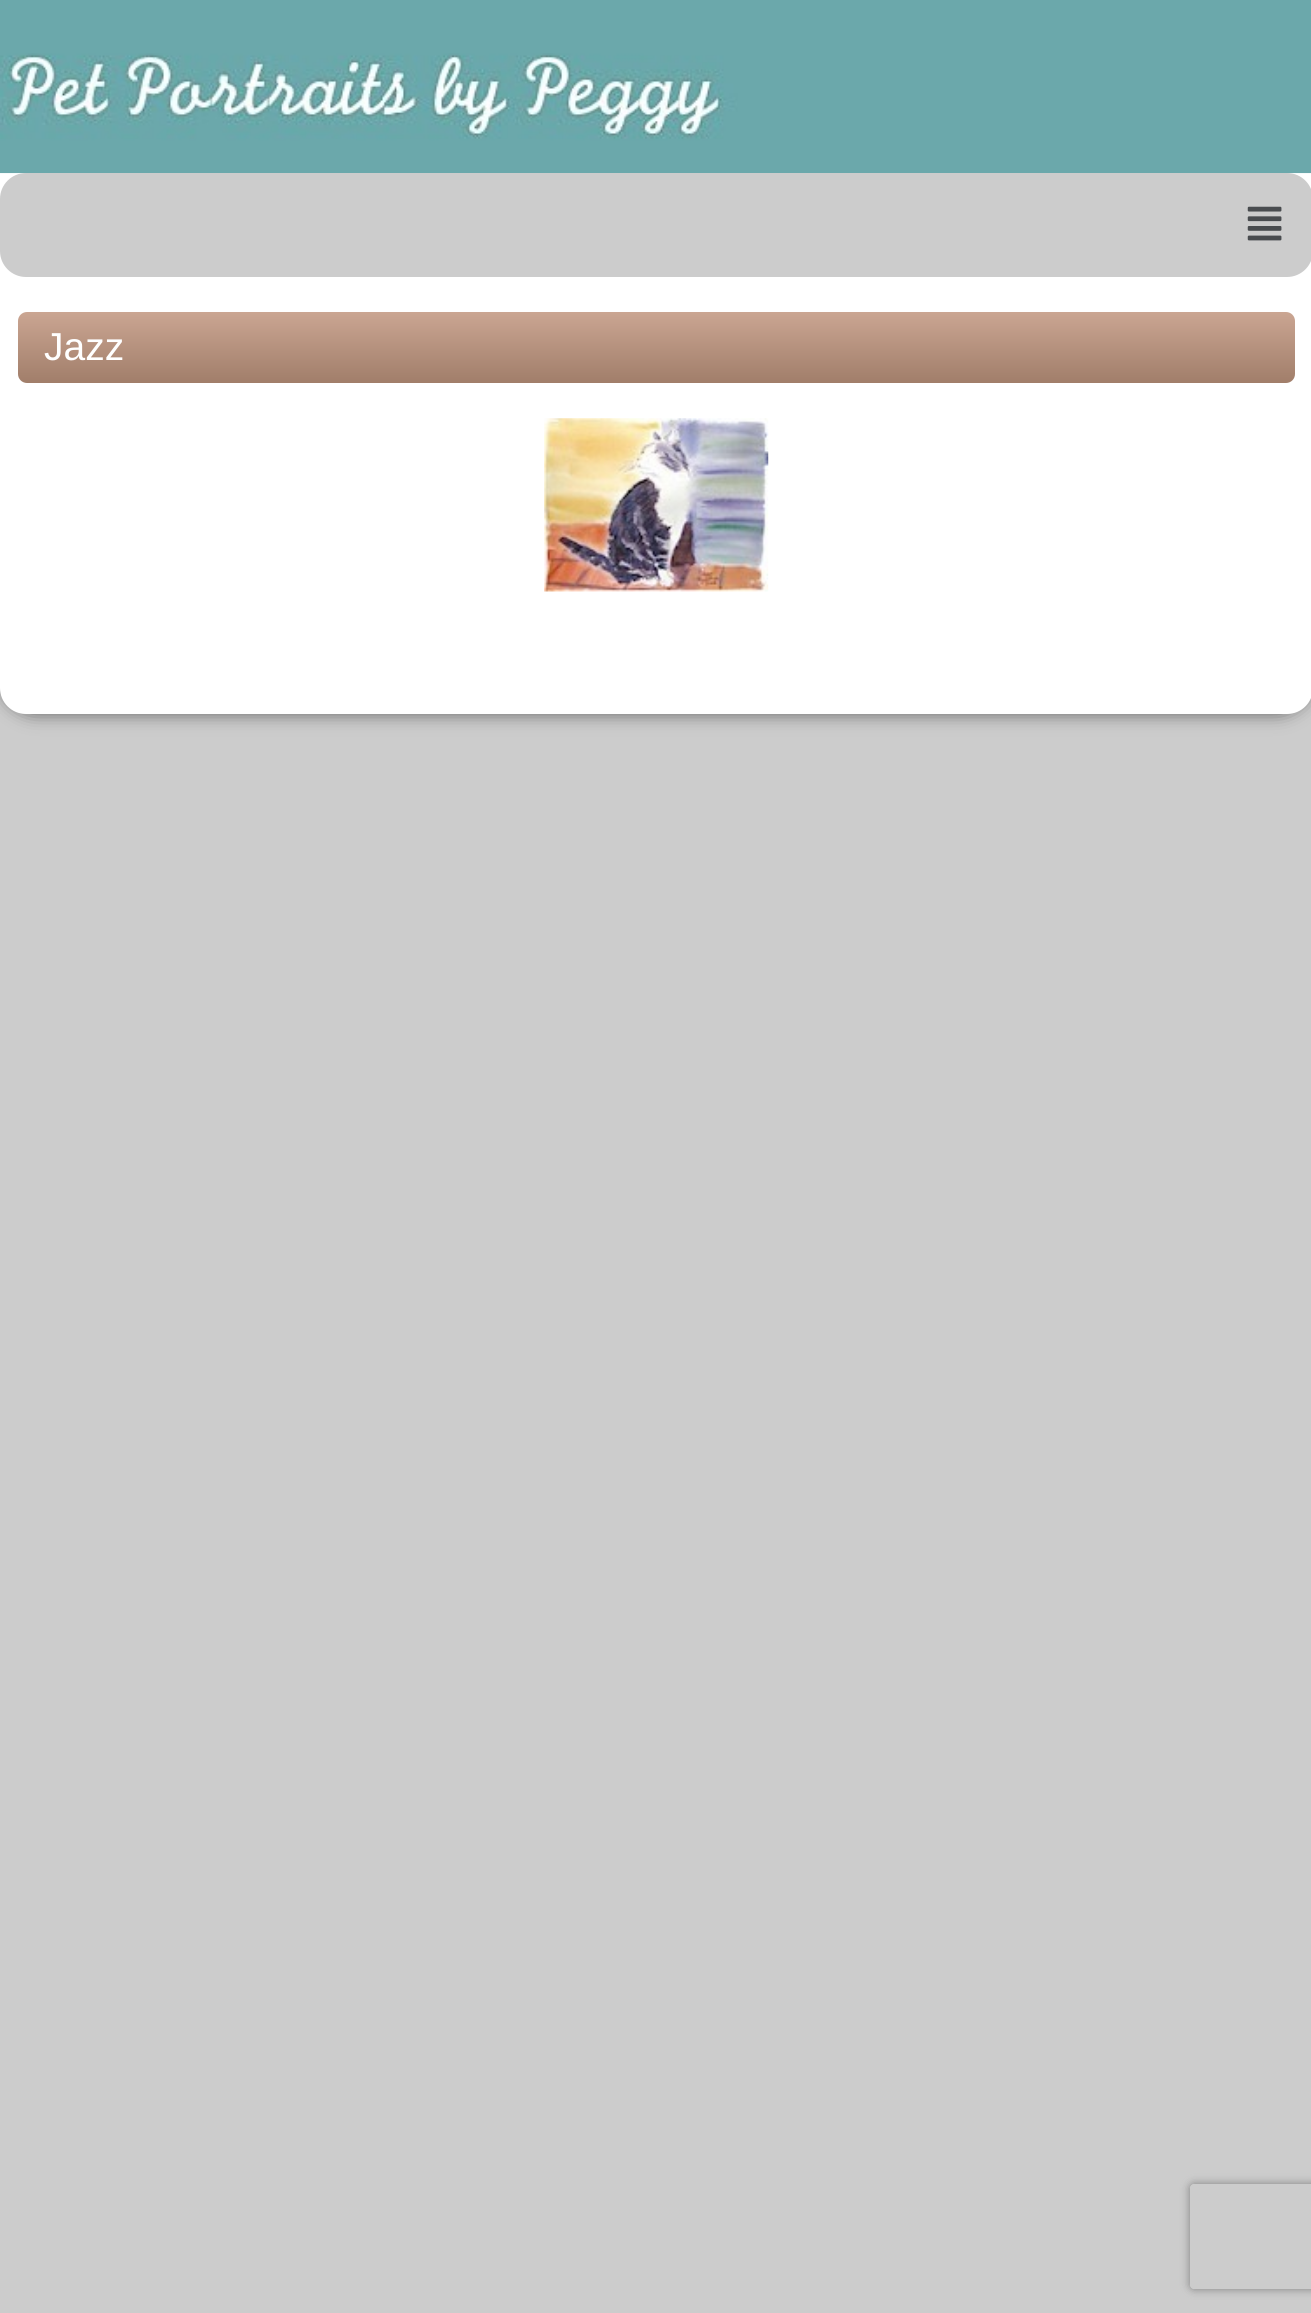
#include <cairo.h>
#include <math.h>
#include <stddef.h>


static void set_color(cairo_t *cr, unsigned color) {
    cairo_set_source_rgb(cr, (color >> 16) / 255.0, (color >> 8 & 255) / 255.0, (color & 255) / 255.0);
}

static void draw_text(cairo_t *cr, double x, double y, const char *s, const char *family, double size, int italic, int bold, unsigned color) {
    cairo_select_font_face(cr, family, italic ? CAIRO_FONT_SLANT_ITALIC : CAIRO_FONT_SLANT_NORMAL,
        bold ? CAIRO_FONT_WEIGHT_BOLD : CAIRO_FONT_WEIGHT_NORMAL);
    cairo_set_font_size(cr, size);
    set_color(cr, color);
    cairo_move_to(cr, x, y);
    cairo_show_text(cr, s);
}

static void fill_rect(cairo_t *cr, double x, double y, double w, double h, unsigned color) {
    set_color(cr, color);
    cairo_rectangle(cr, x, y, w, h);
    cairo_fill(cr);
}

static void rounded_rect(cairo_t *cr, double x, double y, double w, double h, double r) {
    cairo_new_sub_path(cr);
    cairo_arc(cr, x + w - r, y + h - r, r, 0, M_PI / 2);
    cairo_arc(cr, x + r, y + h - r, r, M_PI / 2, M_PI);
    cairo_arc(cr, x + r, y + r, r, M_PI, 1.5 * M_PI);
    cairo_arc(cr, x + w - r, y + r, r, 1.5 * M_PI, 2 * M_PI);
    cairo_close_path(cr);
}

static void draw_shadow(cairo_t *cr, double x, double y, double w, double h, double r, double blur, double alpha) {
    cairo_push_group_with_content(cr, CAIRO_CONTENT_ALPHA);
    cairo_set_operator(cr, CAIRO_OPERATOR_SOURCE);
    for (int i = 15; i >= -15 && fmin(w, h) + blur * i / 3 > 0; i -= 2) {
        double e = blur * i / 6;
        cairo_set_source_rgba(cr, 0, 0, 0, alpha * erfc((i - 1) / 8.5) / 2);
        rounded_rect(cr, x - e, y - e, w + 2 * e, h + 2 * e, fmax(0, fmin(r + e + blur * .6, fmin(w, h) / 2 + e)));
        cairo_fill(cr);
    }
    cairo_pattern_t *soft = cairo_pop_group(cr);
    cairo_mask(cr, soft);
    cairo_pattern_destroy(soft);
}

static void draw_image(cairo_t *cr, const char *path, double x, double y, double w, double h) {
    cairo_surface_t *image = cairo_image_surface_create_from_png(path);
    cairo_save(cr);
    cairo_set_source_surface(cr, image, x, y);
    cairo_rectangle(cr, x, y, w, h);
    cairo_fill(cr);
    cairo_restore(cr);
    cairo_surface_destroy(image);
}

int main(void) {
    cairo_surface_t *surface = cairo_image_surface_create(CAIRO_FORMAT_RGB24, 1311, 2313);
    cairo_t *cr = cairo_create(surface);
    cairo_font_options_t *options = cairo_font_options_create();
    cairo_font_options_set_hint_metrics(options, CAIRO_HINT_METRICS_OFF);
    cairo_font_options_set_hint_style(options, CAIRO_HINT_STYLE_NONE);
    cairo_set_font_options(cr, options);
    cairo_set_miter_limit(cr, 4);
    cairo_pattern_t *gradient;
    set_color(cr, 0xCCCCCC);
    cairo_paint(cr);
    set_color(cr, 0x000000);
    draw_shadow(cr, 0, -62, 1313, 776, 35, 9, 0.5);
    set_color(cr, 0xFFFFFF);
    rounded_rect(cr, 0, -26, 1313, 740, 26);
    cairo_fill(cr);
    fill_rect(cr, 0, 0, 1311, 53, 0x6BA8AB);
    draw_image(cr, "assets/img1.png", 0, 53, 1311, 121);
    set_color(cr, 0xCCCCCC);
    rounded_rect(cr, 0, 173, 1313, 104, 26);
    cairo_fill(cr);
    draw_image(cr, "assets/img2.png", 1247, 206, 35, 35);
    gradient = cairo_pattern_create_linear(656, 383, 656, 311);
    cairo_pattern_add_color_stop_rgba(gradient, 0, 0.631, 0.494, 0.416, 1);
    cairo_pattern_add_color_stop_rgba(gradient, 1, 0.796, 0.651, 0.576, 1);
    cairo_set_source(cr, gradient);
    cairo_pattern_destroy(gradient);
    rounded_rect(cr, 18, 312, 1277, 71, 9);
    cairo_fill(cr);
    draw_text(cr, 44, 360, "Jazz", "Liberation Sans", 39, 0, 0, 0xFFFFFF);
    draw_image(cr, "assets/img3.png", 544, 418, 225, 174);
    cairo_save(cr);
    cairo_set_fill_rule(cr, CAIRO_FILL_RULE_EVEN_ODD);
    cairo_new_path(cr);
    cairo_move_to(cr, 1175, 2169);
    cairo_line_to(cr, 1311, 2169);
    cairo_line_to(cr, 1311, 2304);
    cairo_line_to(cr, 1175, 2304);
    cairo_close_path(cr);
    cairo_move_to(cr, 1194, 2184);
    cairo_line_to(cr, 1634, 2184);
    cairo_curve_to(cr, 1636, 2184, 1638, 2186, 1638, 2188);
    cairo_line_to(cr, 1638, 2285);
    cairo_curve_to(cr, 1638, 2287, 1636, 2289, 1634, 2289);
    cairo_line_to(cr, 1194, 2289);
    cairo_curve_to(cr, 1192, 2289, 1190, 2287, 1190, 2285);
    cairo_line_to(cr, 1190, 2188);
    cairo_curve_to(cr, 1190, 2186, 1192, 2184, 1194, 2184);
    cairo_close_path(cr);
    cairo_clip(cr);
    set_color(cr, 0x808080);
    draw_shadow(cr, 1190, 2184, 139, 105, 4, 4.5, 1);
    cairo_restore(cr);
    cairo_surface_write_to_png(surface, "output.png");
    cairo_font_options_destroy(options);
    cairo_destroy(cr);
    cairo_surface_destroy(surface);
    return 0;
}
